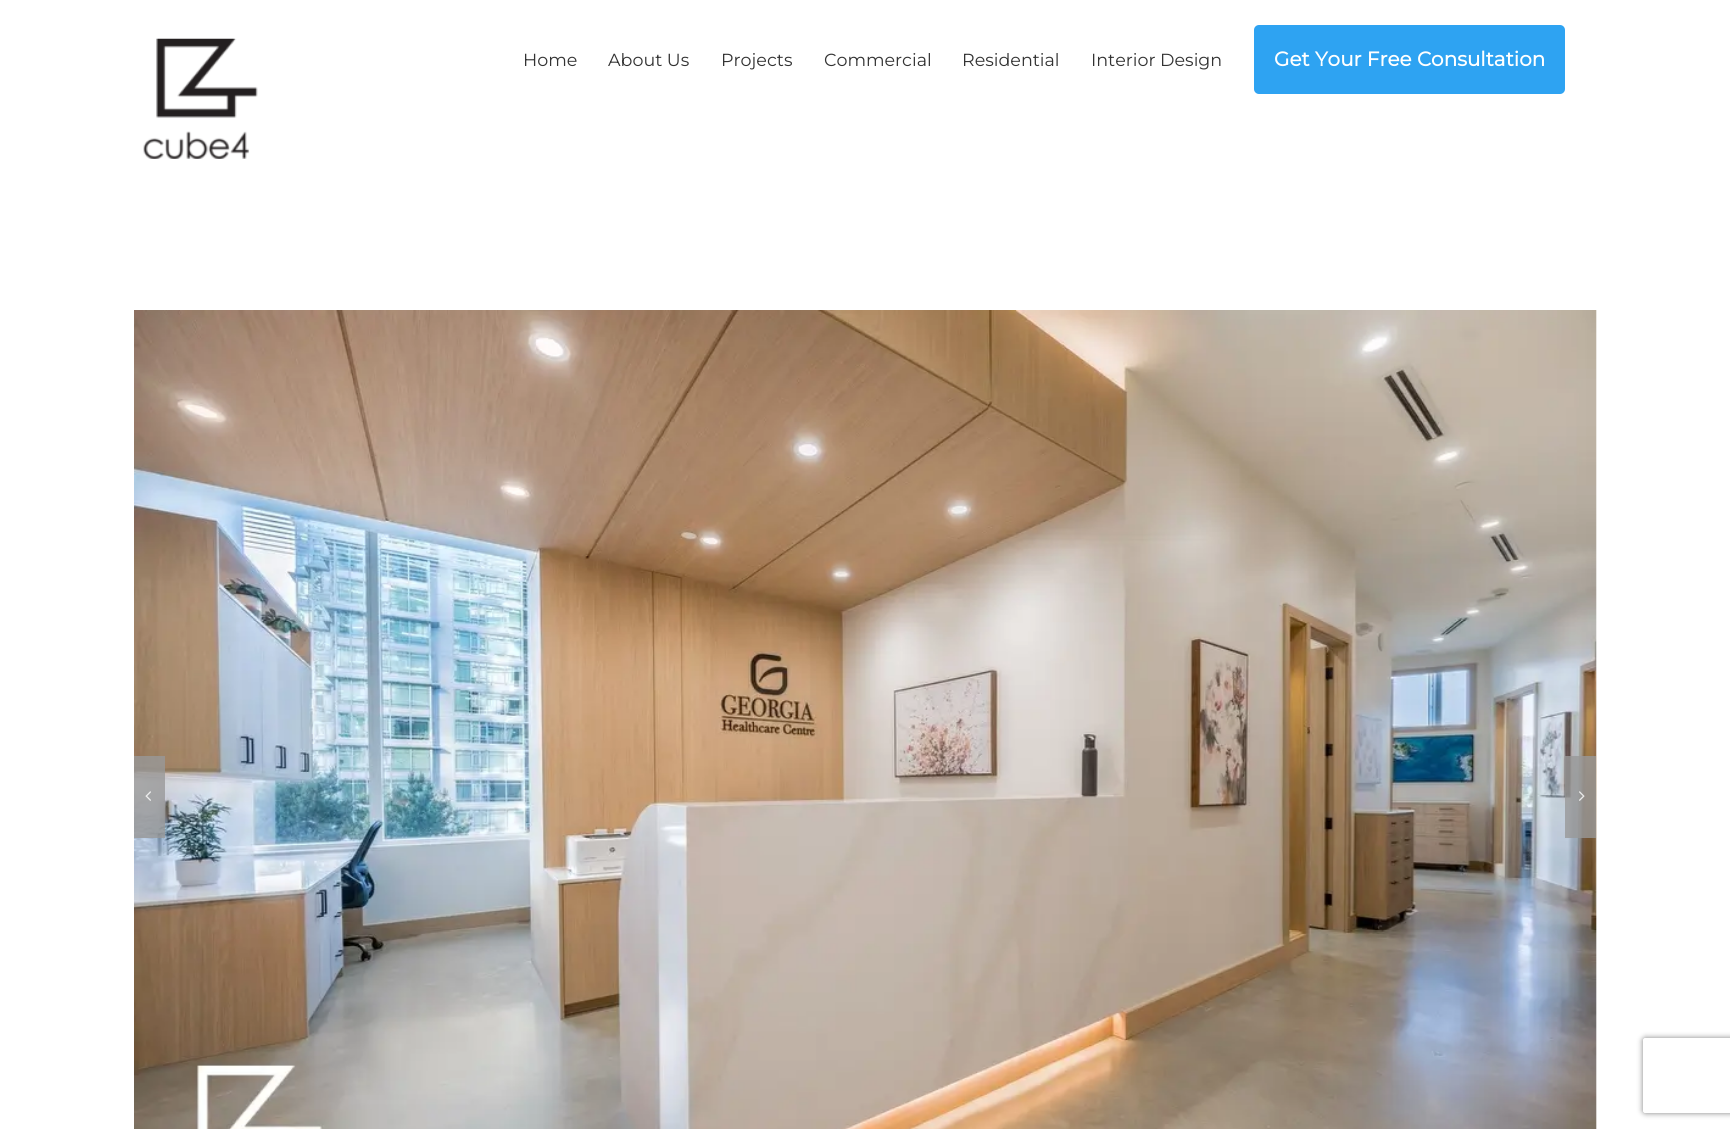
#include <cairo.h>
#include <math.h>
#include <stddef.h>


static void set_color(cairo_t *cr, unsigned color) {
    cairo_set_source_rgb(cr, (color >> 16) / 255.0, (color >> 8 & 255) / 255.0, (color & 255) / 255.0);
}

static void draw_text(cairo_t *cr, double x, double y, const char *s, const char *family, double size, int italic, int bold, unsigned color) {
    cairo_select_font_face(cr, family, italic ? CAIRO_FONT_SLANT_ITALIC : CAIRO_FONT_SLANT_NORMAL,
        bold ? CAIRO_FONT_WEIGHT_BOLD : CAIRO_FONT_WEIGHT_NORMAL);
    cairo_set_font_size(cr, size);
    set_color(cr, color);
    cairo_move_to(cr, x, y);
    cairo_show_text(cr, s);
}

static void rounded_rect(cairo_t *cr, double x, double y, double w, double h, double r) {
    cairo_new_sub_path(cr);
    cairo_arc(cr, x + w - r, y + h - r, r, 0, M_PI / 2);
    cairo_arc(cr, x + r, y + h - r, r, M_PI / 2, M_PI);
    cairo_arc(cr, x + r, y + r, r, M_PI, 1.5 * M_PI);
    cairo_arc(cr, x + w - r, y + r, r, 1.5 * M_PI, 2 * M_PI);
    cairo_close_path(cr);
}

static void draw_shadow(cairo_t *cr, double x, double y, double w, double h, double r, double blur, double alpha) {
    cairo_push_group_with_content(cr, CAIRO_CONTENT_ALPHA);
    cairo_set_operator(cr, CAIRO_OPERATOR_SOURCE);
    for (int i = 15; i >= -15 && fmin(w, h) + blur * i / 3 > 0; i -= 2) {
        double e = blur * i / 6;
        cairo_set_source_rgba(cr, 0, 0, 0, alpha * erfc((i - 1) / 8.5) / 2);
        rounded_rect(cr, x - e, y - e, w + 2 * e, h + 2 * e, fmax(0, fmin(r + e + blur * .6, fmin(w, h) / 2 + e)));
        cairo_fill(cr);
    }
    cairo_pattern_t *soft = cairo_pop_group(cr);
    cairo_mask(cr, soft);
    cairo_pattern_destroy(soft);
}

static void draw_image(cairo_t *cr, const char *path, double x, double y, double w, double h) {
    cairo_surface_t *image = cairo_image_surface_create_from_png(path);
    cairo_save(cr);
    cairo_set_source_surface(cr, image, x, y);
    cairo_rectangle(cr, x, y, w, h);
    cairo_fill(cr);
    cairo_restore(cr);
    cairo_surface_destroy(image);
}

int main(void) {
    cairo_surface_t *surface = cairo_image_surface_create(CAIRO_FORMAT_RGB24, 1730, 1129);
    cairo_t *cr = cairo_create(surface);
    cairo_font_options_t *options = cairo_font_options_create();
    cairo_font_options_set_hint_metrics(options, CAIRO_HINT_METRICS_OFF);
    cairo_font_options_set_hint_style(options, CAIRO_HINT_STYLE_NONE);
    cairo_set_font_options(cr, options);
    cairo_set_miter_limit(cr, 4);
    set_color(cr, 0xFFFFFF);
    cairo_paint(cr);
    draw_image(cr, "assets/img1.png", 143, 38, 115, 121);
    draw_text(cr, 523, 66, "Home", "Montserrat Thin", 17.5, 0, 0, 0x333333);
    draw_text(cr, 608, 66, "About Us", "Montserrat Thin", 17.5, 0, 0, 0x333333);
    draw_text(cr, 721, 66, "Projects", "Montserrat Thin", 17.5, 0, 0, 0x333333);
    draw_text(cr, 824, 66, "Commercial", "Montserrat Thin", 17.5, 0, 0, 0x333333);
    draw_text(cr, 962, 66, "Residential", "Montserrat Thin", 17.5, 0, 0, 0x333333);
    draw_text(cr, 1091, 66, "Interior Design", "Montserrat Thin", 17.5, 0, 0, 0x333333);
    set_color(cr, 0x2EA3F2);
    rounded_rect(cr, 1254, 25, 311, 69, 5);
    cairo_fill(cr);
    draw_text(cr, 1274, 66, "Get Your Free Consultation", "Montserrat", 20, 0, 1, 0xFFFFFF);
    draw_image(cr, "assets/img2.png", 134, 310, 1463, 819);
    cairo_set_source_rgba(cr, 0.6, 0.6, 0.6, 0.8);
    cairo_rectangle(cr, 134, 756, 31, 82);
    cairo_fill(cr);
    draw_image(cr, "assets/img3.png", 145, 791, 6, 10);
    cairo_rectangle(cr, 1565, 756, 31, 82);
    cairo_fill(cr);
    draw_image(cr, "assets/img4.png", 1579, 791, 6, 10);
    cairo_save(cr);
    cairo_set_fill_rule(cr, CAIRO_FILL_RULE_EVEN_ODD);
    cairo_new_path(cr);
    cairo_move_to(cr, 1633, 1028);
    cairo_line_to(cr, 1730, 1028);
    cairo_line_to(cr, 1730, 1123);
    cairo_line_to(cr, 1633, 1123);
    cairo_close_path(cr);
    cairo_move_to(cr, 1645.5, 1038);
    cairo_line_to(cr, 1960.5, 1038);
    cairo_curve_to(cr, 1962, 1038, 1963, 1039, 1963, 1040.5);
    cairo_line_to(cr, 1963, 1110.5);
    cairo_curve_to(cr, 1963, 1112, 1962, 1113, 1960.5, 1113);
    cairo_line_to(cr, 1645.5, 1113);
    cairo_curve_to(cr, 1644, 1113, 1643, 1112, 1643, 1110.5);
    cairo_line_to(cr, 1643, 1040.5);
    cairo_curve_to(cr, 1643, 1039, 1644, 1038, 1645.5, 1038);
    cairo_close_path(cr);
    cairo_clip(cr);
    set_color(cr, 0x808080);
    draw_shadow(cr, 1643, 1038, 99, 75, 2.5, 3, 1);
    cairo_restore(cr);
    cairo_surface_write_to_png(surface, "output.png");
    cairo_font_options_destroy(options);
    cairo_destroy(cr);
    cairo_surface_destroy(surface);
    return 0;
}
